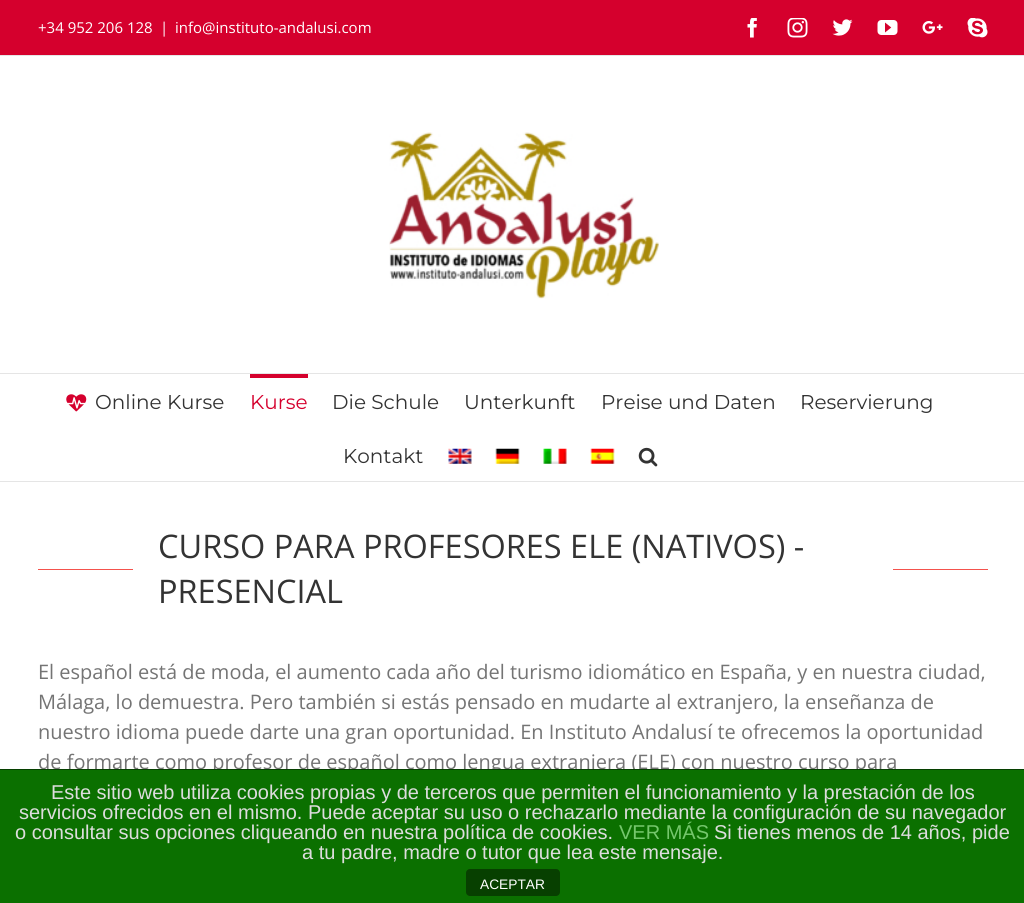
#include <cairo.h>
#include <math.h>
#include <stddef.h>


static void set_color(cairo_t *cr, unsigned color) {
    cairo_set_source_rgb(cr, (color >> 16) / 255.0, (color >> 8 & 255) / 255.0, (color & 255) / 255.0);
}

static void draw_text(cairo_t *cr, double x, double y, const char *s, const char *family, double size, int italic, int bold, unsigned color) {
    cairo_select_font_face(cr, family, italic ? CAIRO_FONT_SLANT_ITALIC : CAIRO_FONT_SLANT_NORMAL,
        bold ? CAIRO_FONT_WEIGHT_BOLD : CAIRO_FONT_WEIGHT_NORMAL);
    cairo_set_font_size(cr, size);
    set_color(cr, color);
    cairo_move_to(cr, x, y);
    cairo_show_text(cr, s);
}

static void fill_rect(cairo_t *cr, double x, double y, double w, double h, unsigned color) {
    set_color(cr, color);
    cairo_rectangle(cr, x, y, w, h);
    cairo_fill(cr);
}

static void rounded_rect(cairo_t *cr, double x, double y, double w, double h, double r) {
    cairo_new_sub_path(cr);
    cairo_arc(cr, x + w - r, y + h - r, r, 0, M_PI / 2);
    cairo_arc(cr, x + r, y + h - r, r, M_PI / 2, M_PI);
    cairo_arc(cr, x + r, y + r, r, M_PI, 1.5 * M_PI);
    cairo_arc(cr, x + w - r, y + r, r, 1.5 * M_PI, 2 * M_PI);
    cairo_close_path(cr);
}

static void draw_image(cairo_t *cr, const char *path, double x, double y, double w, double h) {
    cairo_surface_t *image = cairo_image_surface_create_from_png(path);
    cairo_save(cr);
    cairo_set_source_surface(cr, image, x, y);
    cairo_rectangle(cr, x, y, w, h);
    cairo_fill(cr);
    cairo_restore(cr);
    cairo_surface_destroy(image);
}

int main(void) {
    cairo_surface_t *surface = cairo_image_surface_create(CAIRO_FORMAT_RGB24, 1024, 903);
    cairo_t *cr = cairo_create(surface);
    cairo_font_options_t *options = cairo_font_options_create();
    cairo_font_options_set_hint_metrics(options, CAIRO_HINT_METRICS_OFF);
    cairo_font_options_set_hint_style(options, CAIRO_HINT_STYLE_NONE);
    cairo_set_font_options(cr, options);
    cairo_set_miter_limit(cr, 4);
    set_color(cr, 0xFFFFFF);
    cairo_paint(cr);
    fill_rect(cr, 0, 0, 1024, 55, 0xD5002D);
    fill_rect(cr, 0, 55, 1024, 1, 0xE5E5E5);
    draw_text(cr, 38, 33, "+34 952 206 128", "Open Sans", 15, 0, 0, 0xFFFFFF);
    draw_text(cr, 160, 33, "|", "Open Sans", 15, 0, 0, 0xFFFFFF);
    draw_text(cr, 175, 33, "info@instituto-andalusi.com", "Open Sans", 15, 0, 0, 0xFFFFFF);
    draw_image(cr, "assets/img1.png", 747, 18, 10, 20);
    draw_image(cr, "assets/img2.png", 787, 18, 21, 20);
    draw_image(cr, "assets/img3.png", 832, 19, 21, 17);
    draw_image(cr, "assets/img4.png", 877, 20, 21, 15);
    draw_image(cr, "assets/img5.png", 922, 21, 21, 13);
    draw_image(cr, "assets/img6.png", 967, 18, 21, 20);
    fill_rect(cr, 0, 373, 1024, 1, 0xE5E5E5);
    draw_image(cr, "assets/img7.png", 389, 132, 270, 167);
    fill_rect(cr, 0, 481, 1024, 1, 0xE5E5E5);
    draw_image(cr, "assets/img8.png", 66, 394, 21, 18);
    draw_text(cr, 95, 409, "Online Kurse", "Montserrat Thin", 20, 0, 0, 0x333333);
    fill_rect(cr, 250, 374, 58, 4, 0xD5002D);
    draw_text(cr, 250, 409, "Kurse", "Montserrat Thin", 20, 0, 0, 0xD5002D);
    draw_text(cr, 332, 409, "Die Schule", "Montserrat Thin", 20, 0, 0, 0x333333);
    draw_text(cr, 464, 409, "Unterkunft", "Montserrat Thin", 20, 0, 0, 0x333333);
    draw_text(cr, 601, 409, "Preise und Daten", "Montserrat Thin", 20, 0, 0, 0x333333);
    draw_text(cr, 800, 409, "Reservierung", "Montserrat Thin", 20, 0, 0, 0x333333);
    draw_text(cr, 343, 463, "Kontakt", "Montserrat Thin", 20, 0, 0, 0x333333);
    draw_image(cr, "assets/img9.png", 448, 448, 24, 16);
    draw_image(cr, "assets/img10.png", 495, 448, 25, 16);
    draw_image(cr, "assets/img11.png", 543, 448, 24, 16);
    draw_image(cr, "assets/img12.png", 590, 448, 25, 16);
    draw_image(cr, "assets/img13.png", 638, 447, 20, 20);
    fill_rect(cr, 38, 569, 95, 1, 0xF4524D);
    draw_text(cr, 158, 558, "CURSO PARA PROFESORES ELE (NATIVOS) -", "Open Sans", 32.5, 0, 0, 0x333333);
    draw_text(cr, 158, 603, "PRESENCIAL", "Open Sans", 32.5, 0, 0, 0x333333);
    fill_rect(cr, 893, 569, 95, 1, 0xF4524D);
    draw_text(cr, 38, 679, "El español está de moda, el aumento cada año del turismo idiomático en España, y en nuestra ciudad,", "Open Sans", 20, 0, 0, 0x747474);
    draw_text(cr, 38, 709, "Málaga, lo demuestra. Pero también si estás pensado en mudarte al extranjero, la enseñanza de", "Open Sans", 20, 0, 0, 0x747474);
    draw_text(cr, 38, 739, "nuestro idioma puede darte una gran oportunidad. En Instituto Andalusí te ofrecemos la oportunidad", "Open Sans", 20, 0, 0, 0x747474);
    draw_text(cr, 38, 769, "de formarte como profesor de español como lengua extranjera (ELE) con nuestro curso para", "Open Sans", 20, 0, 0, 0x747474);
    fill_rect(cr, 0, 770, 1024, 133, 0x0B7000);
    fill_rect(cr, 0, 769, 1024, 1, 0x064000);
    draw_text(cr, 51, 799, "Este sitio web utiliza cookies propias y de terceros que permiten el funcionamiento y la prestación de los", "Liberation Sans", 20, 0, 0, 0xDDDDDD);
    draw_text(cr, 19, 819, "servicios ofrecidos en el mismo. Puede aceptar su uso o rechazarlo mediante la configuración de su navegador", "Liberation Sans", 20, 0, 0, 0xDDDDDD);
    draw_text(cr, 15, 839, "o consultar sus opciones cliqueando en nuestra política de cookies.", "Liberation Sans", 20, 0, 0, 0xDDDDDD);
    draw_text(cr, 619, 839, "VER MÁS", "Liberation Sans", 20, 0, 0, 0x75C76C);
    draw_text(cr, 714, 839, "Si tienes menos de 14 años, pide", "Liberation Sans", 20, 0, 0, 0xDDDDDD);
    draw_text(cr, 302, 859, "a tu padre, madre o tutor que lea este mensaje.", "Liberation Sans", 20, 0, 0, 0xDDDDDD);
    set_color(cr, 0x074000);
    rounded_rect(cr, 466, 869, 94, 27, 4);
    cairo_fill(cr);
    draw_text(cr, 480, 889, "ACEPTAR", "Liberation Sans", 13.75, 0, 0, 0xFFFFFF);
    cairo_surface_write_to_png(surface, "output.png");
    cairo_font_options_destroy(options);
    cairo_destroy(cr);
    cairo_surface_destroy(surface);
    return 0;
}
